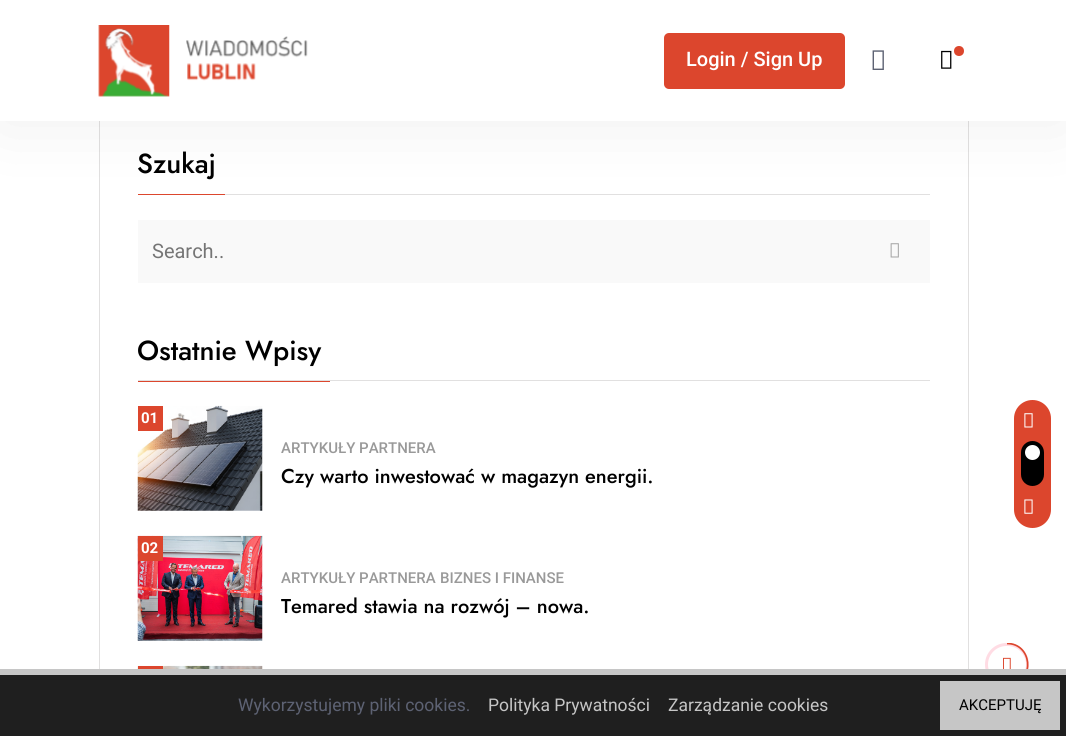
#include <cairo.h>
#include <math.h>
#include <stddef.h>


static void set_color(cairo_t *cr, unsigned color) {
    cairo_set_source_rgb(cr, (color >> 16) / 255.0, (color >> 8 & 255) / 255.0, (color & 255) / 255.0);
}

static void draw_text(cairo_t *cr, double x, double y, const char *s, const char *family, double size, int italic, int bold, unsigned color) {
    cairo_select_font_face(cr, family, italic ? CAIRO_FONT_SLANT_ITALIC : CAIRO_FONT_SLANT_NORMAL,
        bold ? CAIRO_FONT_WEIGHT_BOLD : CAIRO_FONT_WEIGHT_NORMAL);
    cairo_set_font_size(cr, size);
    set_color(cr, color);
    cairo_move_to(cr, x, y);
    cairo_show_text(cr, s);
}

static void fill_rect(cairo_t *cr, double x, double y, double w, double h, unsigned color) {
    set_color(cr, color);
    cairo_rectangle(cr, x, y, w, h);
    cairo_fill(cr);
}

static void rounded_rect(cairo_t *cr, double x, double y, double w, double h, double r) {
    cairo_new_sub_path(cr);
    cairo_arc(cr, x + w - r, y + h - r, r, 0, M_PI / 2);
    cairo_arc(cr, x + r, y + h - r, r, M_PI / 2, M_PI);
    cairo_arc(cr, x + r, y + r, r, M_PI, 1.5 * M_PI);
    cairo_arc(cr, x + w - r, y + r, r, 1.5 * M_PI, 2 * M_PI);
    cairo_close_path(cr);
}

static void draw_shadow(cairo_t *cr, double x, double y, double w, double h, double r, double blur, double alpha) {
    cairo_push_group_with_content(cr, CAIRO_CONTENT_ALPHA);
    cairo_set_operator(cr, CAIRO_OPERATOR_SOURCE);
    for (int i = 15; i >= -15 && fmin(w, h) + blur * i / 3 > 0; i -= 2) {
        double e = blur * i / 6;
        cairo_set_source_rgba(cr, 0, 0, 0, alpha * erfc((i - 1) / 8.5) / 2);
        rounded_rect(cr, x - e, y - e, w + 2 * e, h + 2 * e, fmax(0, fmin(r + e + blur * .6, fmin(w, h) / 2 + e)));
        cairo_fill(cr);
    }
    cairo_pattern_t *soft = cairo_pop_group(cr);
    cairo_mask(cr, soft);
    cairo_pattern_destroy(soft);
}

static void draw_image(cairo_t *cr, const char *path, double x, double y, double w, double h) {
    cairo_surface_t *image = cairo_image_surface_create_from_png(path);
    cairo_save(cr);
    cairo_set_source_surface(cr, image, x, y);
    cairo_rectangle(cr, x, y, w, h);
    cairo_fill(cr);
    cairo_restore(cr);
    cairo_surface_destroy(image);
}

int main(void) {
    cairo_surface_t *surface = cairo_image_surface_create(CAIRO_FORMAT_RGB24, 1066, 736);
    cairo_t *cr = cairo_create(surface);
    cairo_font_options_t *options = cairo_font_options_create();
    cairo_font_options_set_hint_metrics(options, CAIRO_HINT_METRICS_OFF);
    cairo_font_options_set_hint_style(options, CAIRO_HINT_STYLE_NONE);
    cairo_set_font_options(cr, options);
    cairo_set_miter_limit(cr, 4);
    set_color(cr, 0xFFFFFF);
    cairo_paint(cr);
    cairo_rectangle(cr, 99.5, 106.5, 869, 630);
    set_color(cr, 0xE1E0E0);
    cairo_set_line_width(cr, 1);
    cairo_stroke(cr);
    fill_rect(cr, 225, 194, 705, 1, 0xE1E0E0);
    fill_rect(cr, 138, 194, 87, 1, 0xDC462D);
    fill_rect(cr, 138, 220, 792, 63, 0xF9F9F9);
    set_color(cr, 0x000000);
    draw_shadow(cr, 0, 0, 1066, 121, 0, 37.5, 0.07);
    fill_rect(cr, 0, 0, 1066, 121, 0xFFFFFF);
    draw_image(cr, "assets/img1.png", 98, 25, 210, 72);
    set_color(cr, 0xDC462D);
    rounded_rect(cr, 664, 33, 181, 56, 5);
    cairo_fill(cr);
    draw_text(cr, 686, 66, "Login / Sign Up", "Roboto Medium", 20, 0, 0, 0xFFFFFF);
    draw_image(cr, "assets/img2.png", 872, 50, 12, 20);
    draw_image(cr, "assets/img3.png", 941, 50, 11, 19);
    set_color(cr, 0xDC462D);
    cairo_arc(cr, 959, 51, 5, 0, 2 * M_PI);
    cairo_fill(cr);
    draw_text(cr, 137, 173, "Szukaj", "Jost Medium", 27.5, 0, 0, 0x000000);
    draw_text(cr, 152, 258, "Search..", "Roboto", 20, 0, 0, 0x757575);
    draw_image(cr, "assets/img4.png", 890, 243, 9, 15);
    fill_rect(cr, 138, 380, 792, 1, 0xE1E0E0);
    draw_text(cr, 137, 360, "Ostatnie Wpisy", "Jost Medium", 27.5, 0, 0, 0x000000);
    fill_rect(cr, 138, 381, 192, 1, 0xDC462D);
    draw_image(cr, "assets/img5.png", 137, 405, 126, 106);
    fill_rect(cr, 138, 406, 25, 25, 0xDC462D);
    draw_text(cr, 141, 423, "01", "Roboto", 15, 0, 1, 0xFFFFFF);
    draw_text(cr, 281, 453, "ARTYKUŁY PARTNERA", "Roboto Medium", 15, 0, 0, 0x999999);
    draw_text(cr, 281, 483, "Czy warto inwestować w magazyn energii.", "Jost Medium", 20, 0, 0, 0x000000);
    draw_image(cr, "assets/img6.png", 137, 535, 126, 106);
    fill_rect(cr, 138, 536, 25, 25, 0xDC462D);
    draw_text(cr, 141, 553, "02", "Roboto", 15, 0, 1, 0xFFFFFF);
    draw_text(cr, 281, 583, "ARTYKUŁY PARTNERA", "Roboto Medium", 15, 0, 0, 0x999999);
    draw_text(cr, 440, 583, "BIZNES I FINANSE", "Roboto Medium", 15, 0, 0, 0x999999);
    draw_text(cr, 281, 613, "Temared stawia na rozwój – nowa.", "Jost Medium", 20, 0, 0, 0x000000);
    draw_image(cr, "assets/img7.png", 137, 665, 126, 4);
    fill_rect(cr, 138, 666, 25, 3, 0xDC462D);
    rounded_rect(cr, 1014, 400, 37, 128, 18.5);
    cairo_fill(cr);
    draw_image(cr, "assets/img8.png", 1024, 413, 9, 15);
    set_color(cr, 0x000000);
    rounded_rect(cr, 1021, 441, 23, 45, 11.5);
    cairo_fill(cr);
    set_color(cr, 0xFFFFFF);
    cairo_arc(cr, 1032.5, 452.5, 7.5, 0, 2 * M_PI);
    cairo_fill(cr);
    draw_image(cr, "assets/img9.png", 1024, 499, 9, 15);
    rounded_rect(cr, 986.5, 644.5, 41, 40, 20);
    set_color(cr, 0xFFDCE4);
    cairo_set_line_width(cr, 3);
    cairo_stroke(cr);
    cairo_save(cr);
    cairo_rectangle(cr, 985, 643, 44, 43);
    cairo_clip(cr);
    cairo_new_path(cr);
    cairo_move_to(cr, 1007, 643.5);
    cairo_curve_to(cr, 1032, 643.5, 1035.5, 680, 1011, 685);
    set_color(cr, 0xDC462D);
    cairo_set_line_width(cr, 1.7);
    cairo_stroke(cr);
    cairo_restore(cr);
    draw_image(cr, "assets/img10.png", 1003, 657, 8, 12);
    fill_rect(cr, 0, 675, 1066, 61, 0x1F1F1F);
    fill_rect(cr, 0, 669, 1066, 6, 0xC6C6C6);
    draw_text(cr, 238, 711, "Wykorzystujemy pliki cookies.", "Roboto", 17.5, 0, 0, 0x5D6273);
    draw_text(cr, 488, 711, "Polityka Prywatności", "Roboto", 17.5, 0, 0, 0xC6C6C6);
    draw_text(cr, 668, 711, "Zarządzanie cookies", "Roboto", 17.5, 0, 0, 0xC6C6C6);
    fill_rect(cr, 940, 681, 120, 49, 0xC6C6C6);
    draw_text(cr, 959, 710, "AKCEPTUJĘ", "Roboto", 15, 0, 0, 0x000000);
    cairo_surface_write_to_png(surface, "output.png");
    cairo_font_options_destroy(options);
    cairo_destroy(cr);
    cairo_surface_destroy(surface);
    return 0;
}
